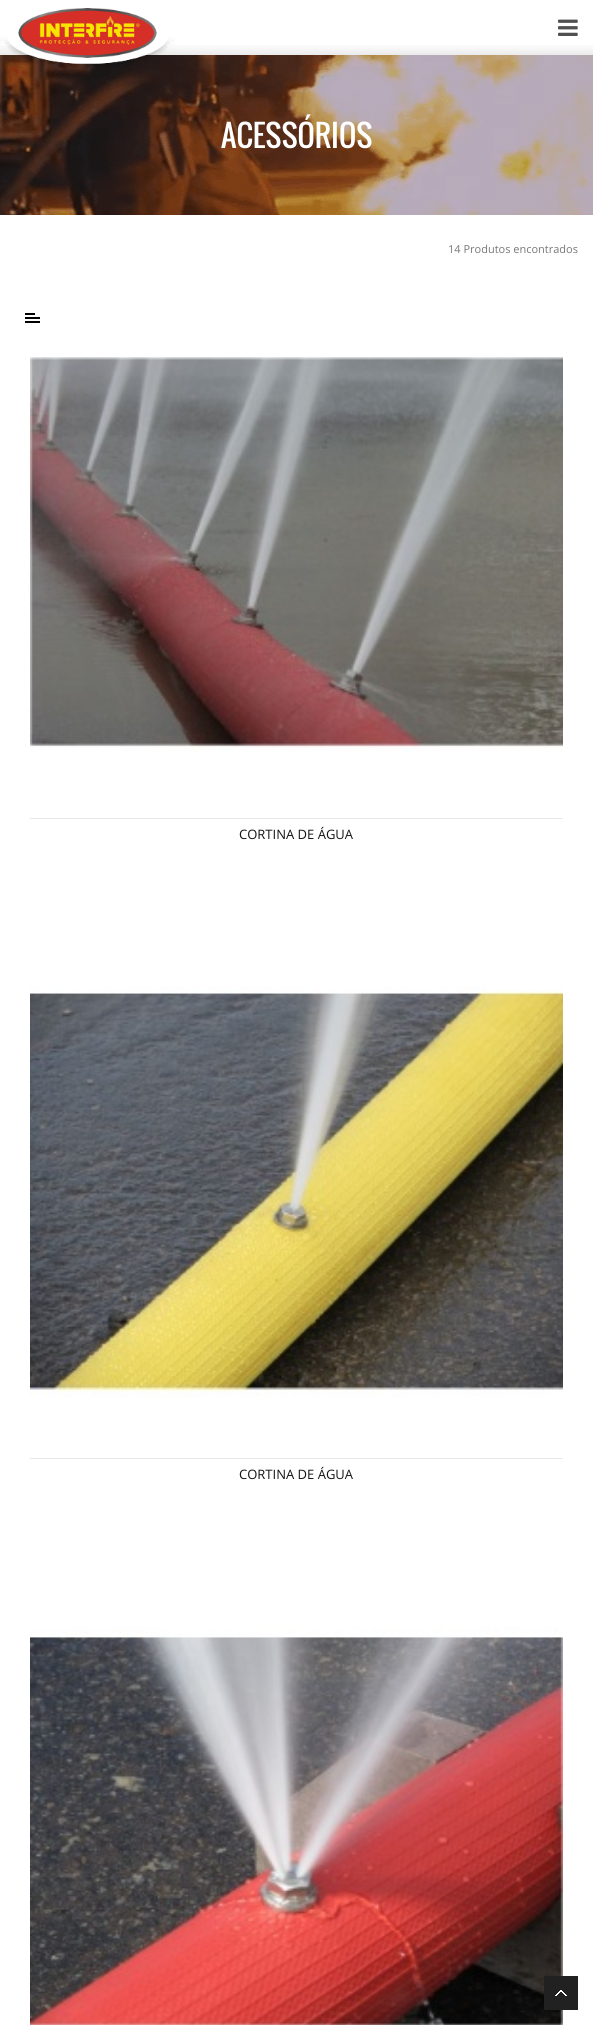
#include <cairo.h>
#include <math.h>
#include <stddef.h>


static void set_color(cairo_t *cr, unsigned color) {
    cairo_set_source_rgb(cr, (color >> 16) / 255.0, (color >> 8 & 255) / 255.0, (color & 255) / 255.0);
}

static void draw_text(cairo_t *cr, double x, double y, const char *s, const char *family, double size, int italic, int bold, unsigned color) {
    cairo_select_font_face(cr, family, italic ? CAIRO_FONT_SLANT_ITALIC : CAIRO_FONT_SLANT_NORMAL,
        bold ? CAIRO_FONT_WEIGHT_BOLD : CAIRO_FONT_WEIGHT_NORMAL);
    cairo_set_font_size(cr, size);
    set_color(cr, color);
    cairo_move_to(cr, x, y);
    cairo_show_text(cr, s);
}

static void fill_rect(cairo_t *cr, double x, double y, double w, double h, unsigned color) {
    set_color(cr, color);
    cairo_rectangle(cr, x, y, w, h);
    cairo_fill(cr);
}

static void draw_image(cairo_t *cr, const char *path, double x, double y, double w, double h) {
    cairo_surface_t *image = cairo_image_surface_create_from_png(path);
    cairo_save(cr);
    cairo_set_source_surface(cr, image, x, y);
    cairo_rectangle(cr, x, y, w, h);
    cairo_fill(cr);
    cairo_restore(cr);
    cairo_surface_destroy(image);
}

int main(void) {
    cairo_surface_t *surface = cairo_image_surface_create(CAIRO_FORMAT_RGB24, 593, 2025);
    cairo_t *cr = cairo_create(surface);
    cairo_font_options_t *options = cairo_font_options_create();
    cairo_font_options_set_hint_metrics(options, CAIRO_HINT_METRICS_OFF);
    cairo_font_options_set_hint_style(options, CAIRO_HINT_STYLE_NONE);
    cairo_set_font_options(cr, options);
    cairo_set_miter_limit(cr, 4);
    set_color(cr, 0xFFFFFF);
    cairo_paint(cr);
    draw_image(cr, "assets/img1.png", 0, 45, 593, 10);
    draw_image(cr, "assets/img4.png", 0, 55, 593, 160);
    draw_image(cr, "assets/img2.png", 0, 8, 175, 60);
    draw_image(cr, "assets/img3.png", 558, 19, 20, 17);
    draw_text(cr, 221, 148, "ACESSÓRIOS", "Oswald", 30, 0, 0, 0xFFFFFF);
    draw_text(cr, 448, 253, "14 Produtos encontrados", "Open Sans", 11, 0, 0, 0x777777);
    draw_image(cr, "assets/img5.png", 25, 313, 15, 10);
    fill_rect(cr, 30, 818, 533, 1, 0xE8E8E8);
    draw_image(cr, "assets/img6.png", 30, 357, 533, 395);
    draw_text(cr, 239, 839, "CORTINA DE ÁGUA", "Open Sans", 13, 0, 0, 0x141414);
    fill_rect(cr, 30, 1458, 533, 1, 0xE8E8E8);
    draw_image(cr, "assets/img7.png", 30, 986, 533, 411);
    draw_text(cr, 239, 1479, "CORTINA DE ÁGUA", "Open Sans", 13, 0, 0, 0x141414);
    draw_image(cr, "assets/img8.png", 30, 1627, 533, 398);
    draw_image(cr, "assets/img9.png", 544, 1976, 34, 34);
    cairo_surface_write_to_png(surface, "output.png");
    cairo_font_options_destroy(options);
    cairo_destroy(cr);
    cairo_surface_destroy(surface);
    return 0;
}
